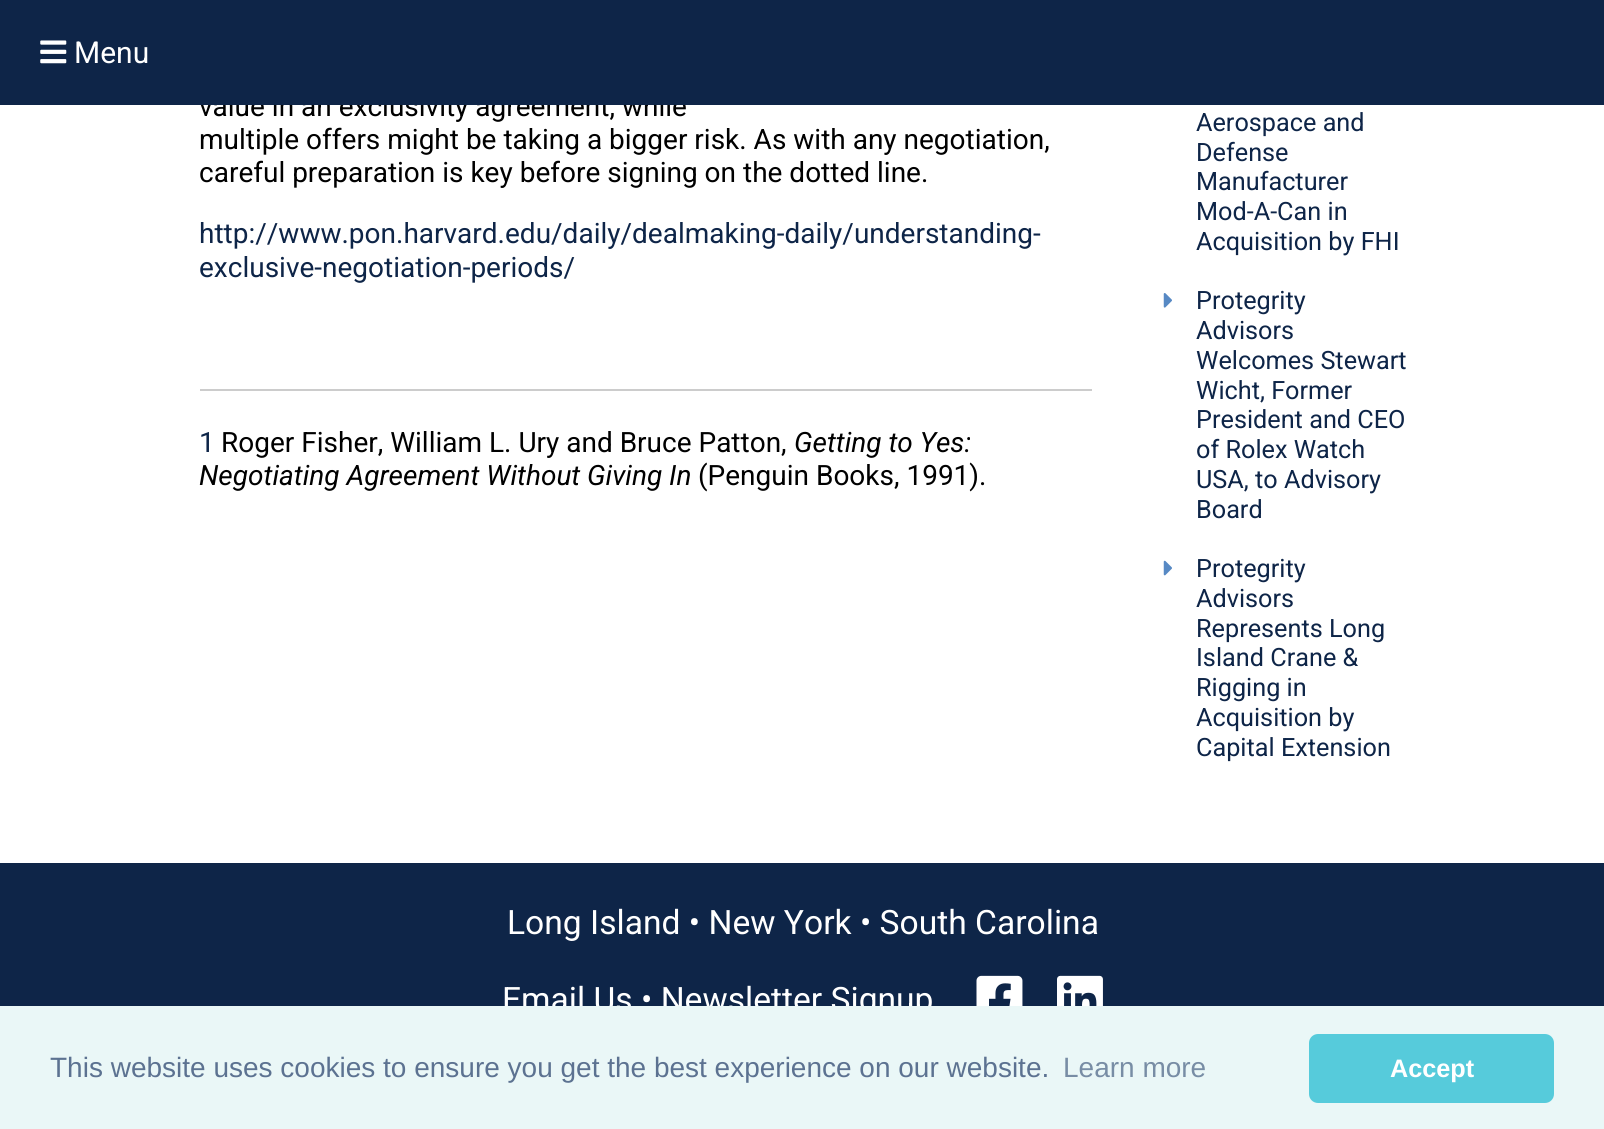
#include <cairo.h>
#include <math.h>
#include <stddef.h>


static void set_color(cairo_t *cr, unsigned color) {
    cairo_set_source_rgb(cr, (color >> 16) / 255.0, (color >> 8 & 255) / 255.0, (color & 255) / 255.0);
}

static void draw_text(cairo_t *cr, double x, double y, const char *s, const char *family, double size, int italic, int bold, unsigned color) {
    cairo_select_font_face(cr, family, italic ? CAIRO_FONT_SLANT_ITALIC : CAIRO_FONT_SLANT_NORMAL,
        bold ? CAIRO_FONT_WEIGHT_BOLD : CAIRO_FONT_WEIGHT_NORMAL);
    cairo_set_font_size(cr, size);
    set_color(cr, color);
    cairo_move_to(cr, x, y);
    cairo_show_text(cr, s);
}

static void fill_rect(cairo_t *cr, double x, double y, double w, double h, unsigned color) {
    set_color(cr, color);
    cairo_rectangle(cr, x, y, w, h);
    cairo_fill(cr);
}

static void rounded_rect(cairo_t *cr, double x, double y, double w, double h, double r) {
    cairo_new_sub_path(cr);
    cairo_arc(cr, x + w - r, y + h - r, r, 0, M_PI / 2);
    cairo_arc(cr, x + r, y + h - r, r, M_PI / 2, M_PI);
    cairo_arc(cr, x + r, y + r, r, M_PI, 1.5 * M_PI);
    cairo_arc(cr, x + w - r, y + r, r, 1.5 * M_PI, 2 * M_PI);
    cairo_close_path(cr);
}

static void draw_image(cairo_t *cr, const char *path, double x, double y, double w, double h) {
    cairo_surface_t *image = cairo_image_surface_create_from_png(path);
    cairo_save(cr);
    cairo_set_source_surface(cr, image, x, y);
    cairo_rectangle(cr, x, y, w, h);
    cairo_fill(cr);
    cairo_restore(cr);
    cairo_surface_destroy(image);
}

int main(void) {
    cairo_surface_t *surface = cairo_image_surface_create(CAIRO_FORMAT_RGB24, 1604, 1129);
    cairo_t *cr = cairo_create(surface);
    cairo_font_options_t *options = cairo_font_options_create();
    cairo_font_options_set_hint_metrics(options, CAIRO_HINT_METRICS_OFF);
    cairo_font_options_set_hint_style(options, CAIRO_HINT_STYLE_NONE);
    cairo_set_font_options(cr, options);
    cairo_set_miter_limit(cr, 4);
    set_color(cr, 0xFFFFFF);
    cairo_paint(cr);
    draw_text(cr, 199, 116, "value in an exclusivity agreement, while", "Roboto", 28, 0, 0, 0x000000);
    fill_rect(cr, 0, 0, 1604, 105, 0x0E2548);
    draw_image(cr, "assets/img1.png", 40, 40, 27, 24);
    draw_text(cr, 74, 63, "Menu", "Roboto", 30, 0, 0, 0xFFFFFF);
    draw_text(cr, 199, 149, "multiple offers might be taking a bigger risk. As with any negotiation,", "Roboto", 28, 0, 0, 0x000000);
    draw_text(cr, 199, 182, "careful preparation is key before signing on the dotted line.", "Roboto", 28, 0, 0, 0x000000);
    draw_text(cr, 199, 243, "http://www.pon.harvard.edu/daily/dealmaking-daily/understanding-", "Roboto", 28, 0, 0, 0x0E2548);
    draw_text(cr, 199, 277, "exclusive-negotiation-periods/", "Roboto", 28, 0, 0, 0x0E2548);
    fill_rect(cr, 200, 389, 892, 2, 0xCCCCCC);
    draw_text(cr, 199, 452, "1", "Roboto", 28, 0, 0, 0x0E2548);
    draw_text(cr, 221, 452, "Roger Fisher, William L. Ury and Bruce Patton,", "Roboto", 28, 0, 0, 0x000000);
    draw_text(cr, 794, 452, "Getting to Yes:", "Roboto", 28, 1, 0, 0x000000);
    draw_text(cr, 199, 485, "Negotiating Agreement Without Giving In", "Roboto", 28, 1, 0, 0x000000);
    draw_text(cr, 698, 485, "(Penguin Books, 1991).", "Roboto", 28, 0, 0, 0x000000);
    draw_text(cr, 1196, 131, "Aerospace and", "Roboto", 25.25, 0, 0, 0x0E2548);
    draw_text(cr, 1196, 161, "Defense", "Roboto", 25.25, 0, 0, 0x0E2548);
    draw_text(cr, 1196, 190, "Manufacturer", "Roboto", 25.25, 0, 0, 0x0E2548);
    draw_text(cr, 1196, 220, "Mod-A-Can in", "Roboto", 25.25, 0, 0, 0x0E2548);
    draw_text(cr, 1196, 250, "Acquisition by FHI", "Roboto", 25.25, 0, 0, 0x0E2548);
    draw_image(cr, "assets/img2.png", 1163, 293, 9, 15);
    draw_text(cr, 1196, 309, "Protegrity", "Roboto", 25.25, 0, 0, 0x0E2548);
    draw_text(cr, 1196, 339, "Advisors", "Roboto", 25.25, 0, 0, 0x0E2548);
    draw_text(cr, 1196, 369, "Welcomes Stewart", "Roboto", 25.25, 0, 0, 0x0E2548);
    draw_text(cr, 1196, 399, "Wicht, Former", "Roboto", 25.25, 0, 0, 0x0E2548);
    draw_text(cr, 1196, 428, "President and CEO", "Roboto", 25.25, 0, 0, 0x0E2548);
    draw_text(cr, 1196, 458, "of Rolex Watch", "Roboto", 25.25, 0, 0, 0x0E2548);
    draw_text(cr, 1196, 488, "USA, to Advisory", "Roboto", 25.25, 0, 0, 0x0E2548);
    draw_text(cr, 1196, 518, "Board", "Roboto", 25.25, 0, 0, 0x0E2548);
    draw_image(cr, "assets/img3.png", 1163, 560, 9, 16);
    draw_text(cr, 1196, 577, "Protegrity", "Roboto", 25.25, 0, 0, 0x0E2548);
    draw_text(cr, 1196, 607, "Advisors", "Roboto", 25.25, 0, 0, 0x0E2548);
    draw_text(cr, 1196, 637, "Represents Long", "Roboto", 25.25, 0, 0, 0x0E2548);
    draw_text(cr, 1196, 666, "Island Crane &", "Roboto", 25.25, 0, 0, 0x0E2548);
    draw_text(cr, 1196, 696, "Rigging in", "Roboto", 25.25, 0, 0, 0x0E2548);
    draw_text(cr, 1196, 726, "Acquisition by", "Roboto", 25.25, 0, 0, 0x0E2548);
    draw_text(cr, 1196, 756, "Capital Extension", "Roboto", 25.25, 0, 0, 0x0E2548);
    fill_rect(cr, 0, 863, 1604, 143, 0x0E2548);
    draw_text(cr, 507, 934, "Long Island • New York • South Carolina", "Roboto", 33.6, 0, 0, 0xFFFFFF);
    draw_text(cr, 502, 1011, "Email Us • Newsletter Signup", "Roboto", 33.6, 0, 0, 0xFFFFFF);
    draw_image(cr, "assets/img4.png", 976, 975, 47, 31);
    draw_image(cr, "assets/img5.png", 1057, 975, 46, 31);
    fill_rect(cr, 0, 1006, 1604, 123, 0xEAF7F7);
    draw_text(cr, 50, 1077, "This website uses cookies to ensure you get the best experience on our website.", "Liberation Sans", 28, 0, 0, 0x5C7291);
    draw_text(cr, 1063, 1077, "Learn more", "Liberation Sans", 28, 0, 0, 0x788DA5);
    set_color(cr, 0x56CBDB);
    rounded_rect(cr, 1309, 1034, 245, 69, 9);
    cairo_fill(cr);
    draw_text(cr, 1390, 1077, "Accept", "Liberation Sans", 25.25, 0, 1, 0xFFFFFF);
    cairo_surface_write_to_png(surface, "output.png");
    cairo_font_options_destroy(options);
    cairo_destroy(cr);
    cairo_surface_destroy(surface);
    return 0;
}
